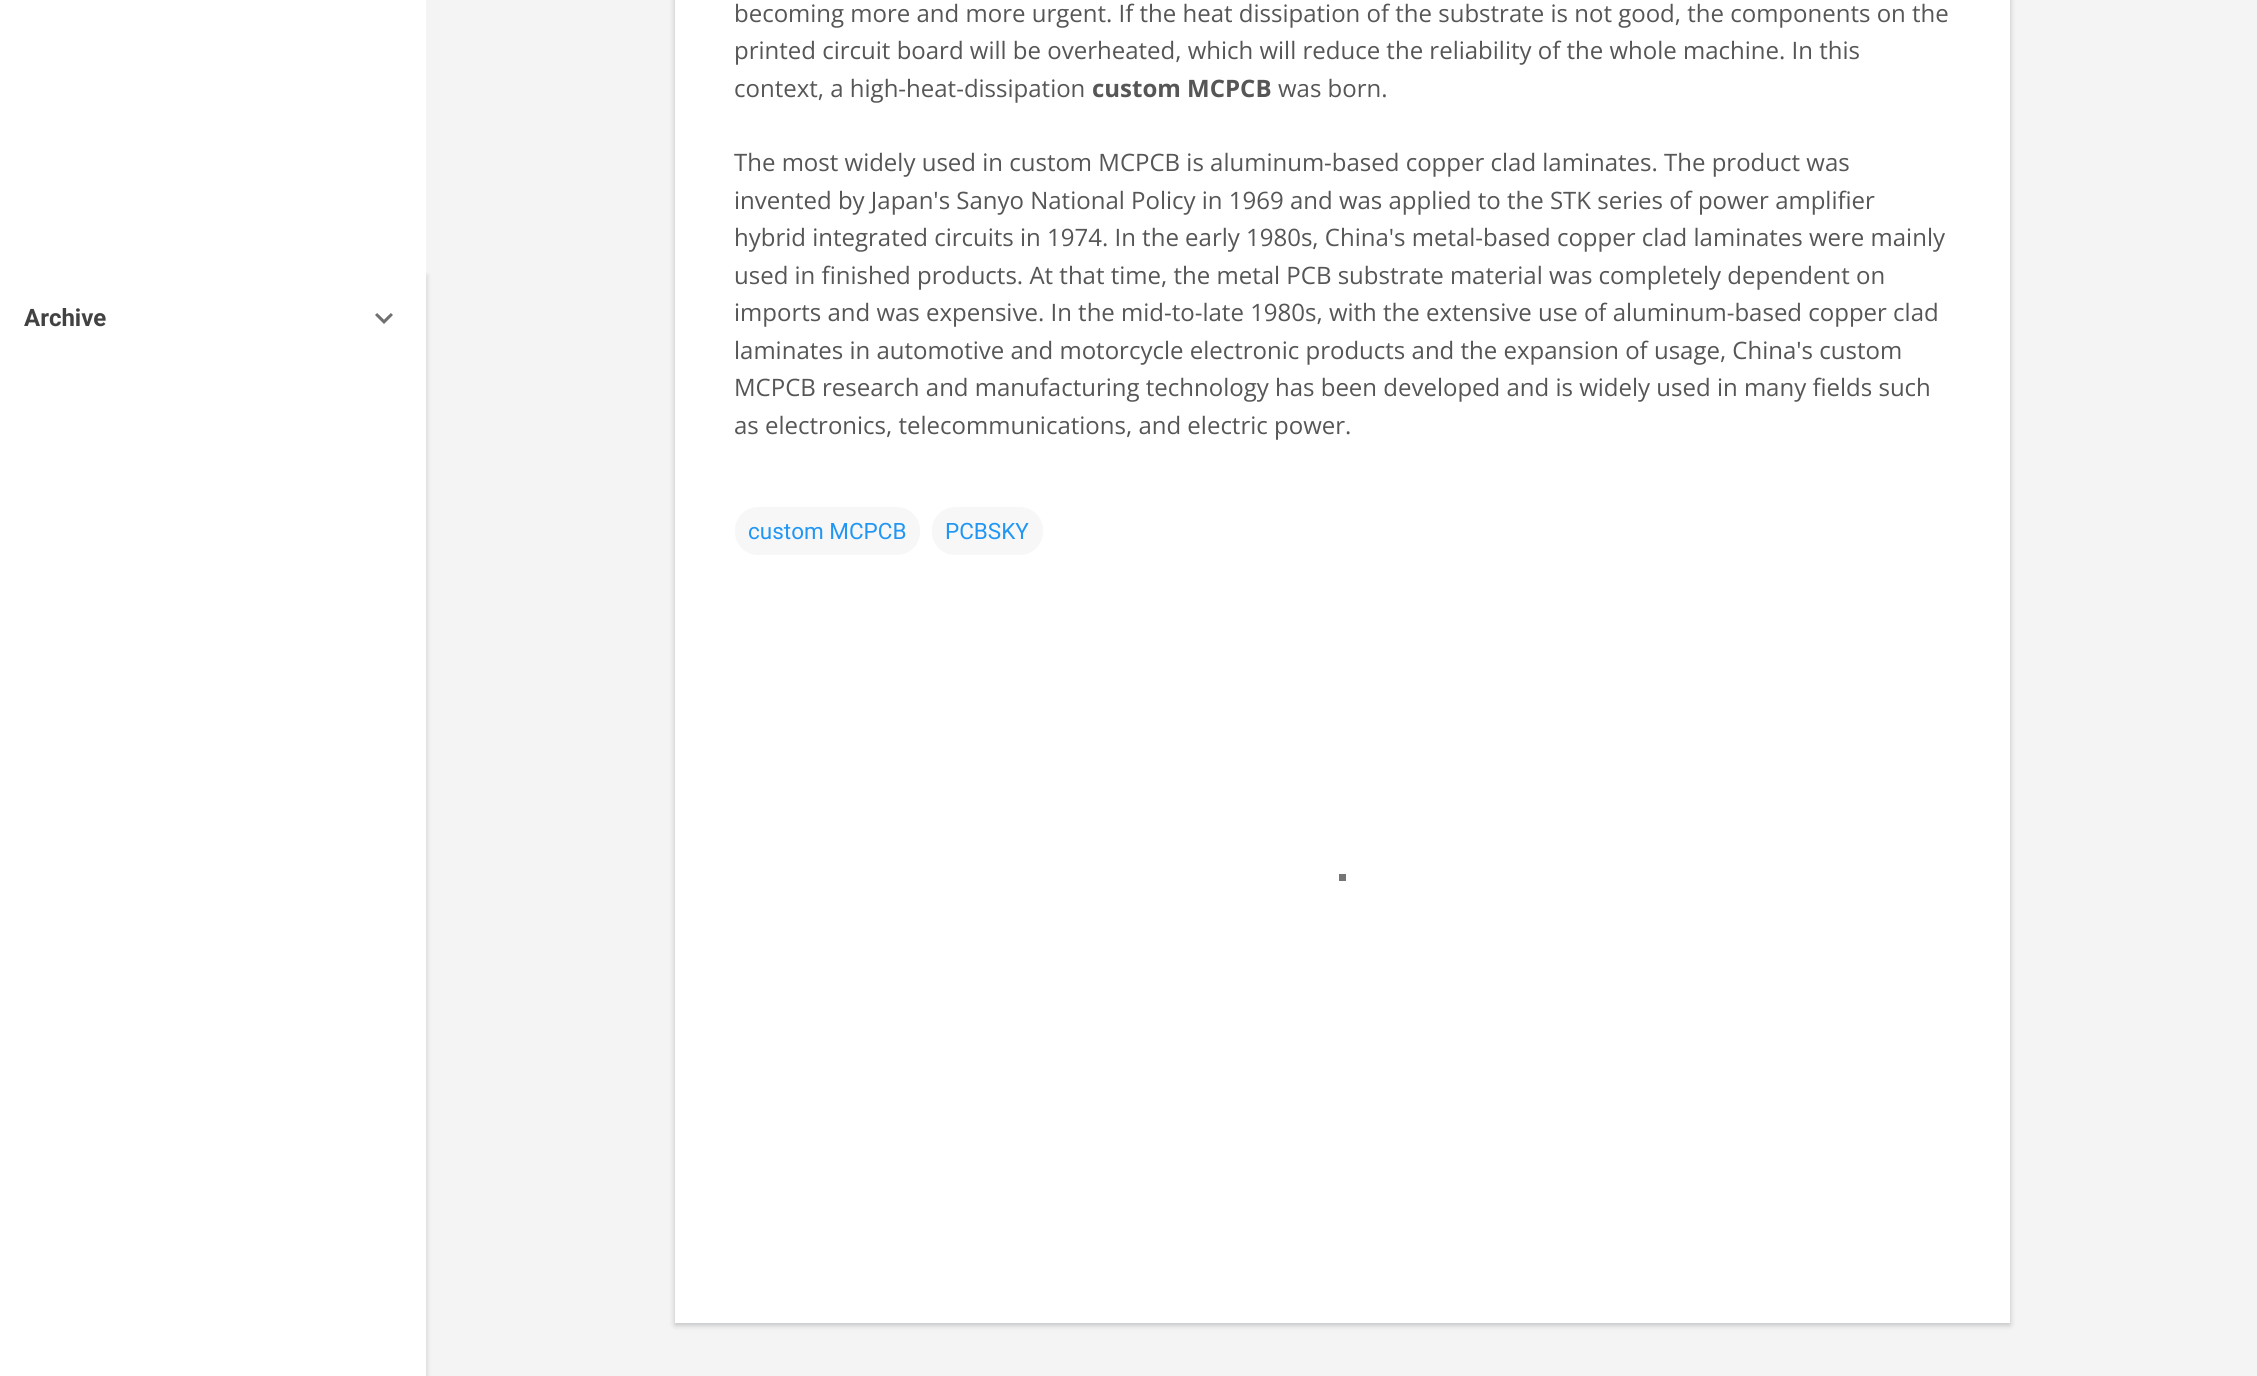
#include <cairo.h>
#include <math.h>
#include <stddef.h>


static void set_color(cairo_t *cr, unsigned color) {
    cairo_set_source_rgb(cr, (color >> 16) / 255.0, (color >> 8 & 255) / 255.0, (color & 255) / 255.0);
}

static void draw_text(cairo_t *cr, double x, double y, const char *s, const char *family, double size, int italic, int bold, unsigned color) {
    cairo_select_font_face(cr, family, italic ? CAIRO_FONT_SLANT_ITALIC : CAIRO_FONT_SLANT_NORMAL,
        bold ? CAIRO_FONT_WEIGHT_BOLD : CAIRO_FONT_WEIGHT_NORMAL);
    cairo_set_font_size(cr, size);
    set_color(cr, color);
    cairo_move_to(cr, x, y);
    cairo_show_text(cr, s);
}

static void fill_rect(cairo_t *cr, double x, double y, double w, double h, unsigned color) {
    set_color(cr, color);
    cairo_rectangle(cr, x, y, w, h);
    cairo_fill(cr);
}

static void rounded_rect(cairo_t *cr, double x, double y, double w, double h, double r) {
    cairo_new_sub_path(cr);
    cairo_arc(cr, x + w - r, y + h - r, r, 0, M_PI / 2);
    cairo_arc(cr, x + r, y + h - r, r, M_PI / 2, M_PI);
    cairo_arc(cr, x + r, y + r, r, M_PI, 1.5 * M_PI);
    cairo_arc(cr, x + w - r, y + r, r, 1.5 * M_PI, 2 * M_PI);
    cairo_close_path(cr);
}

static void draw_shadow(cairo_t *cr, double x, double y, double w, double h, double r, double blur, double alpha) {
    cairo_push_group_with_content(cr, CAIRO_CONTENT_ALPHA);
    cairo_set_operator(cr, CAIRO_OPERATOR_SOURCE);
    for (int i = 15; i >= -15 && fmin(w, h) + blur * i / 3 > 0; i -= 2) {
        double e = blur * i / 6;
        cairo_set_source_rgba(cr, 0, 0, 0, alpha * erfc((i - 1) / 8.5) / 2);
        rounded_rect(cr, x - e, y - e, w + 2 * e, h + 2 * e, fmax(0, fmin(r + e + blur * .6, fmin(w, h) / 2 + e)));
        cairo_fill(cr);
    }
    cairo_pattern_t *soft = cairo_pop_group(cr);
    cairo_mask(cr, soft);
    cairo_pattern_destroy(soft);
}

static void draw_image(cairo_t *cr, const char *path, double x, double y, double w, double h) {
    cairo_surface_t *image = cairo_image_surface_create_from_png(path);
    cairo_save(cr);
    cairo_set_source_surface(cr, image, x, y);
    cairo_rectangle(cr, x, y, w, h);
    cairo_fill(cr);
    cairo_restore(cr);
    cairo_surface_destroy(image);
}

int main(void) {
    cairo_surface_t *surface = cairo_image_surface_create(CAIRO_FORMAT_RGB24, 2257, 1376);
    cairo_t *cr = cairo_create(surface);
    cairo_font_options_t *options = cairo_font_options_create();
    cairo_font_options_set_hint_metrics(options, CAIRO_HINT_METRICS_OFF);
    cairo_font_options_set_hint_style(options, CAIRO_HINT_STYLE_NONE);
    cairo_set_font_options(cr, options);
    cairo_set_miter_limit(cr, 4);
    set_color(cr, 0xF4F4F4);
    cairo_paint(cr);
    set_color(cr, 0x000000);
    draw_shadow(cr, 2, 275, 426, 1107, 0, 2, 0.1);
    fill_rect(cr, 0, 0, 426, 1376, 0xFFFFFF);
    draw_text(cr, 24, 326, "Archive", "Roboto", 24, 0, 1, 0x424242);
    draw_image(cr, "assets/img1.png", 375, 313, 18, 11);
    set_color(cr, 0x3C4043);
    draw_shadow(cr, 675, -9, 1335, 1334, 0, 3, 0.3);
    fill_rect(cr, 675, 0, 1335, 1323, 0xFFFFFF);
    draw_text(cr, 734, 22, "becoming more and more urgent. If the heat dissipation of the substrate is not good, the components on the", "Open Sans", 24, 0, 0, 0x565656);
    draw_text(cr, 734, 59, "printed circuit board will be overheated, which will reduce the reliability of the whole machine. In this", "Open Sans", 24, 0, 0, 0x565656);
    draw_text(cr, 734, 97, "context, a high-heat-dissipation", "Open Sans", 24, 0, 0, 0x565656);
    draw_text(cr, 1092, 97, "custom MCPCB", "Open Sans", 24, 0, 1, 0x565656);
    draw_text(cr, 1278, 97, "was born.", "Open Sans", 24, 0, 0, 0x565656);
    draw_text(cr, 734, 171, "The most widely used in custom MCPCB is aluminum-based copper clad laminates. The product was", "Open Sans", 24, 0, 0, 0x565656);
    draw_text(cr, 734, 209, "invented by Japan's Sanyo National Policy in 1969 and was applied to the STK series of power amplifier", "Open Sans", 24, 0, 0, 0x565656);
    draw_text(cr, 734, 246, "hybrid integrated circuits in 1974. In the early 1980s, China's metal-based copper clad laminates were mainly", "Open Sans", 24, 0, 0, 0x565656);
    draw_text(cr, 734, 284, "used in finished products. At that time, the metal PCB substrate material was completely dependent on", "Open Sans", 24, 0, 0, 0x565656);
    draw_text(cr, 734, 321, "imports and was expensive. In the mid-to-late 1980s, with the extensive use of aluminum-based copper clad", "Open Sans", 24, 0, 0, 0x565656);
    draw_text(cr, 734, 359, "laminates in automotive and motorcycle electronic products and the expansion of usage, China's custom", "Open Sans", 24, 0, 0, 0x565656);
    draw_text(cr, 734, 396, "MCPCB research and manufacturing technology has been developed and is widely used in many fields such", "Open Sans", 24, 0, 0, 0x565656);
    draw_text(cr, 734, 434, "as electronics, telecommunications, and electric power.", "Open Sans", 24, 0, 0, 0x565656);
    set_color(cr, 0xF7F7F7);
    rounded_rect(cr, 735, 507, 185, 48, 23);
    cairo_fill(cr);
    draw_text(cr, 748, 539, "custom MCPCB", "Roboto", 22.5, 0, 0, 0x2196F3);
    set_color(cr, 0xF7F7F7);
    rounded_rect(cr, 932, 507, 111, 48, 23);
    cairo_fill(cr);
    draw_text(cr, 945, 539, "PCBSKY", "Roboto", 22.5, 0, 0, 0x2196F3);
    fill_rect(cr, 1339, 874, 7, 7, 0x757575);
    cairo_surface_write_to_png(surface, "output.png");
    cairo_font_options_destroy(options);
    cairo_destroy(cr);
    cairo_surface_destroy(surface);
    return 0;
}
